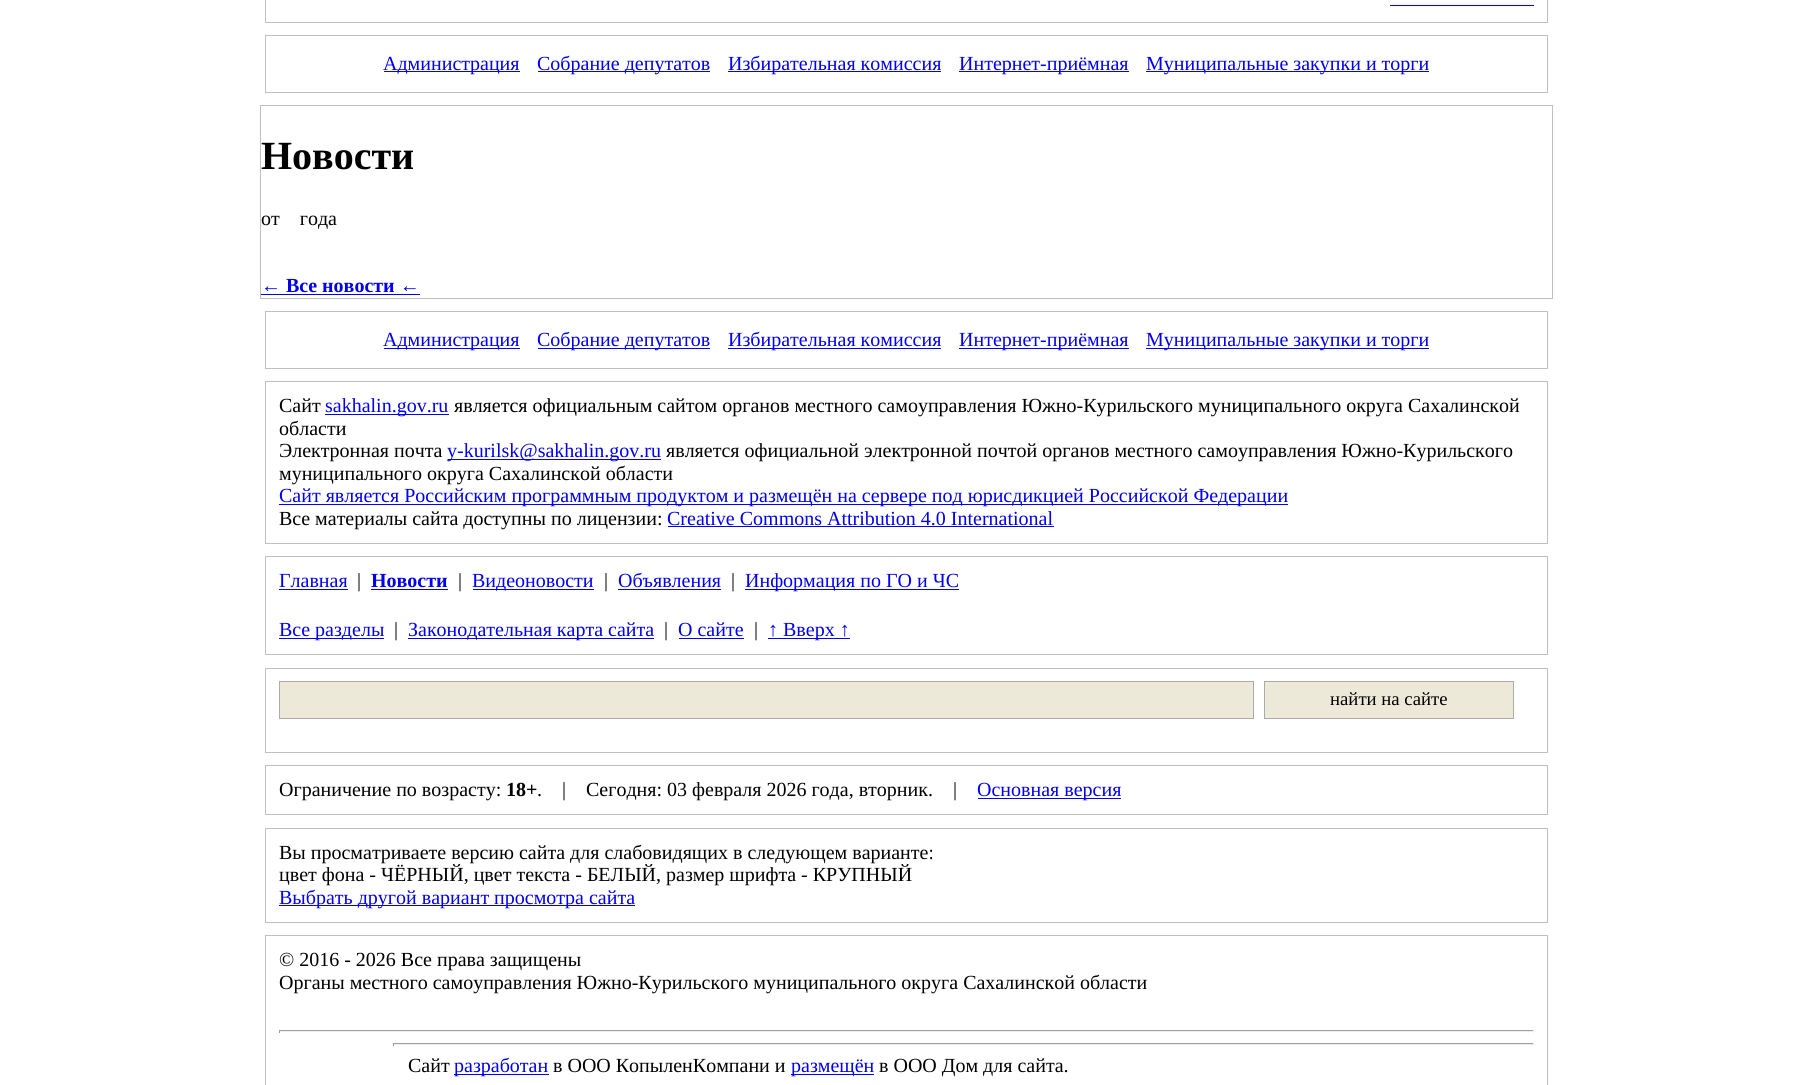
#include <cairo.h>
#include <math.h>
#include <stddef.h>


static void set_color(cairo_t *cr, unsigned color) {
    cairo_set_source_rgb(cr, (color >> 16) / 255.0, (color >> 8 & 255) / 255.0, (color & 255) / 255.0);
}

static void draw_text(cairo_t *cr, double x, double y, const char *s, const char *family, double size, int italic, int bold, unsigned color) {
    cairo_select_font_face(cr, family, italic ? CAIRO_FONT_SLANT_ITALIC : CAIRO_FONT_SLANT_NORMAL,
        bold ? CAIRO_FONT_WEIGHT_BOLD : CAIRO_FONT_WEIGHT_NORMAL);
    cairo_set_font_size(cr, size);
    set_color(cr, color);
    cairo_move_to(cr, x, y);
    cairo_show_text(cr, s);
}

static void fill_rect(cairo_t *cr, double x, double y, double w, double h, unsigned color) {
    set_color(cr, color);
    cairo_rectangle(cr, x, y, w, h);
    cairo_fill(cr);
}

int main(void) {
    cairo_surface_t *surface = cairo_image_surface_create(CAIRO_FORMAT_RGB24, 1812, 1085);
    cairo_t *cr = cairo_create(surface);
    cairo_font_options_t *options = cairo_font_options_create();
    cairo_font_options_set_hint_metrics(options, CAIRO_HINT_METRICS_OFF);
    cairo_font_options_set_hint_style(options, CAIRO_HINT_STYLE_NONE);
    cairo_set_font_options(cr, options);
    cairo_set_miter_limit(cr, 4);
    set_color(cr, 0xFFFFFF);
    cairo_paint(cr);
    cairo_rectangle(cr, 265.5, -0.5, 1282, 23);
    set_color(cr, 0xC0C0C0);
    cairo_set_line_width(cr, 1);
    cairo_stroke(cr);
    fill_rect(cr, 1390, 5, 144, 1, 0x0000EE);
    cairo_rectangle(cr, 265.5, 35.5, 1282, 57);
    set_color(cr, 0xC0C0C0);
    cairo_stroke(cr);
    fill_rect(cr, 384, 71, 136, 1, 0x0000EE);
    draw_text(cr, 383, 70, "Администрация", "Liberation Serif", 20, 0, 0, 0x0000EE);
    fill_rect(cr, 538, 71, 172, 1, 0x0000EE);
    draw_text(cr, 537, 70, "Собрание депутатов", "Liberation Serif", 20, 0, 0, 0x0000EE);
    fill_rect(cr, 728, 71, 213, 1, 0x0000EE);
    draw_text(cr, 728, 70, "Избирательная комиссия", "Liberation Serif", 20, 0, 0, 0x0000EE);
    fill_rect(cr, 959, 71, 170, 1, 0x0000EE);
    draw_text(cr, 959, 70, "Интернет-приёмная", "Liberation Serif", 20, 0, 0, 0x0000EE);
    fill_rect(cr, 1146, 71, 283, 1, 0x0000EE);
    draw_text(cr, 1146, 70, "Муниципальные закупки и торги", "Liberation Serif", 20, 0, 0, 0x0000EE);
    cairo_rectangle(cr, 260.5, 105.5, 1292, 193);
    set_color(cr, 0xC0C0C0);
    cairo_stroke(cr);
    draw_text(cr, 261, 169, "Новости", "Liberation Serif", 40, 0, 1, 0x000000);
    draw_text(cr, 261, 225, "от    года", "Liberation Serif", 20, 0, 0, 0x000000);
    draw_text(cr, 261, 292, "← Все новости ←", "Liberation Serif", 20, 0, 1, 0x0000EE);
    fill_rect(cr, 261, 294, 159, 1, 0x0000EE);
    cairo_rectangle(cr, 265.5, 311.5, 1282, 57);
    set_color(cr, 0xC0C0C0);
    cairo_stroke(cr);
    fill_rect(cr, 384, 348, 136, 1, 0x0000EE);
    draw_text(cr, 383, 346, "Администрация", "Liberation Serif", 20, 0, 0, 0x0000EE);
    fill_rect(cr, 538, 348, 172, 1, 0x0000EE);
    draw_text(cr, 537, 346, "Собрание депутатов", "Liberation Serif", 20, 0, 0, 0x0000EE);
    fill_rect(cr, 728, 348, 213, 1, 0x0000EE);
    draw_text(cr, 728, 346, "Избирательная комиссия", "Liberation Serif", 20, 0, 0, 0x0000EE);
    fill_rect(cr, 959, 348, 170, 1, 0x0000EE);
    draw_text(cr, 959, 346, "Интернет-приёмная", "Liberation Serif", 20, 0, 0, 0x0000EE);
    fill_rect(cr, 1146, 348, 283, 1, 0x0000EE);
    draw_text(cr, 1146, 346, "Муниципальные закупки и торги", "Liberation Serif", 20, 0, 0, 0x0000EE);
    cairo_rectangle(cr, 265.5, 381.5, 1282, 162);
    set_color(cr, 0xC0C0C0);
    cairo_stroke(cr);
    draw_text(cr, 279, 412, "Сайт", "Liberation Serif", 20, 0, 0, 0x000000);
    fill_rect(cr, 325, 414, 124, 1, 0x0000EE);
    draw_text(cr, 325, 412, "sakhalin.gov.ru", "Liberation Serif", 20, 0, 0, 0x0000EE);
    draw_text(cr, 454, 412, "является официальным сайтом органов местного самоуправления Южно-Курильского муниципального округа Сахалинской", "Liberation Serif", 20, 0, 0, 0x000000);
    draw_text(cr, 279, 435, "области", "Liberation Serif", 20, 0, 0, 0x000000);
    draw_text(cr, 279, 457, "Электронная почта", "Liberation Serif", 20, 0, 0, 0x000000);
    fill_rect(cr, 448, 459, 213, 1, 0x0000EE);
    draw_text(cr, 447, 457, "y-kurilsk@sakhalin.gov.ru", "Liberation Serif", 20, 0, 0, 0x0000EE);
    draw_text(cr, 666, 457, "является официальной электронной почтой органов местного самоуправления Южно-Курильского", "Liberation Serif", 20, 0, 0, 0x000000);
    draw_text(cr, 279, 480, "муниципального округа Сахалинской области", "Liberation Serif", 20, 0, 0, 0x000000);
    fill_rect(cr, 279, 504, 1009, 1, 0x0000EE);
    draw_text(cr, 279, 502, "Сайт является Российским программным продуктом и размещён на сервере под юрисдикцией Российской Федерации", "Liberation Serif", 20, 0, 0, 0x0000EE);
    draw_text(cr, 279, 525, "Все материалы сайта доступны по лицензии:", "Liberation Serif", 20, 0, 0, 0x000000);
    draw_text(cr, 667, 525, "Creative Commons Attribution 4.0 International", "Liberation Serif", 20, 0, 0, 0x0000EE);
    fill_rect(cr, 668, 526, 386, 1, 0x0000EE);
    cairo_rectangle(cr, 265.5, 556.5, 1282, 98);
    set_color(cr, 0xC0C0C0);
    cairo_stroke(cr);
    draw_text(cr, 279, 587, "Главная", "Liberation Serif", 20, 0, 0, 0x0000EE);
    fill_rect(cr, 279, 589, 69, 1, 0x0000EE);
    draw_text(cr, 357, 587, "|", "Liberation Serif", 20, 0, 0, 0x000000);
    draw_text(cr, 371, 587, "Новости", "Liberation Serif", 20, 0, 1, 0x0000EE);
    fill_rect(cr, 371, 589, 77, 1, 0x0000EE);
    draw_text(cr, 458, 587, "|", "Liberation Serif", 20, 0, 0, 0x000000);
    fill_rect(cr, 473, 589, 121, 1, 0x0000EE);
    draw_text(cr, 472, 587, "Видеоновости", "Liberation Serif", 20, 0, 0, 0x0000EE);
    draw_text(cr, 604, 587, "|", "Liberation Serif", 20, 0, 0, 0x000000);
    draw_text(cr, 618, 587, "Объявления", "Liberation Serif", 20, 0, 0, 0x0000EE);
    fill_rect(cr, 618, 589, 103, 1, 0x0000EE);
    draw_text(cr, 731, 587, "|", "Liberation Serif", 20, 0, 0, 0x000000);
    fill_rect(cr, 745, 589, 214, 1, 0x0000EE);
    draw_text(cr, 745, 587, "Информация по ГО и ЧС", "Liberation Serif", 20, 0, 0, 0x0000EE);
    fill_rect(cr, 279, 638, 105, 1, 0x0000EE);
    draw_text(cr, 279, 636, "Все разделы", "Liberation Serif", 20, 0, 0, 0x0000EE);
    draw_text(cr, 394, 636, "|", "Liberation Serif", 20, 0, 0, 0x000000);
    fill_rect(cr, 408, 638, 246, 1, 0x0000EE);
    draw_text(cr, 408, 636, "Законодательная карта сайта", "Liberation Serif", 20, 0, 0, 0x0000EE);
    draw_text(cr, 664, 636, "|", "Liberation Serif", 20, 0, 0, 0x000000);
    draw_text(cr, 678, 636, "О сайте", "Liberation Serif", 20, 0, 0, 0x0000EE);
    fill_rect(cr, 679, 638, 65, 1, 0x0000EE);
    draw_text(cr, 754, 636, "|", "Liberation Serif", 20, 0, 0, 0x000000);
    fill_rect(cr, 768, 638, 82, 1, 0x0000EE);
    draw_text(cr, 768, 636, "↑ Вверх ↑", "Liberation Serif", 20, 0, 0, 0x0000EE);
    cairo_rectangle(cr, 265.5, 668.5, 1282, 84);
    set_color(cr, 0xC0C0C0);
    cairo_stroke(cr);
    set_color(cr, 0xECE9D8);
    cairo_rectangle(cr, 279.5, 681.5, 974, 37);
    cairo_fill_preserve(cr);
    set_color(cr, 0xABABAB);
    cairo_stroke(cr);
    set_color(cr, 0xECE9D8);
    cairo_rectangle(cr, 1264.5, 681.5, 249, 37);
    cairo_fill_preserve(cr);
    set_color(cr, 0xABABAB);
    cairo_stroke(cr);
    draw_text(cr, 1330, 705, "найти на сайте", "Liberation Serif", 18.75, 0, 0, 0x000000);
    cairo_rectangle(cr, 265.5, 765.5, 1282, 49);
    set_color(cr, 0xC0C0C0);
    cairo_stroke(cr);
    draw_text(cr, 279, 796, "Ограничение по возрасту:", "Liberation Serif", 20, 0, 0, 0x000000);
    draw_text(cr, 506, 796, "18+", "Liberation Serif", 20, 0, 1, 0x000000);
    draw_text(cr, 537, 796, ".    |    Сегодня: 03 февраля 2026 года, вторник.    |", "Liberation Serif", 20, 0, 0, 0x000000);
    fill_rect(cr, 978, 798, 143, 1, 0x0000EE);
    draw_text(cr, 977, 796, "Основная версия", "Liberation Serif", 20, 0, 0, 0x0000EE);
    cairo_rectangle(cr, 265.5, 828.5, 1282, 94);
    set_color(cr, 0xC0C0C0);
    cairo_stroke(cr);
    draw_text(cr, 279, 859, "Вы просматриваете версию сайта для слабовидящих в следующем варианте:", "Liberation Serif", 20, 0, 0, 0x000000);
    draw_text(cr, 279, 881, "цвет фона - ЧЁРНЫЙ, цвет текста - БЕЛЫЙ, размер шрифта - КРУПНЫЙ", "Liberation Serif", 20, 0, 0, 0x000000);
    fill_rect(cr, 279, 905, 356, 1, 0x0000EE);
    draw_text(cr, 279, 904, "Выбрать другой вариант просмотра сайта", "Liberation Serif", 20, 0, 0, 0x0000EE);
    cairo_rectangle(cr, 265.5, 935.5, 1282, 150);
    set_color(cr, 0xC0C0C0);
    cairo_stroke(cr);
    draw_text(cr, 279, 966, "© 2016 - 2026 Все права защищены", "Liberation Serif", 20, 0, 0, 0x000000);
    draw_text(cr, 279, 989, "Органы местного самоуправления Южно-Курильского муниципального округа Сахалинской области", "Liberation Serif", 20, 0, 0, 0x000000);
    fill_rect(cr, 279, 1030, 1255, 1, 0x9F9F9F);
    fill_rect(cr, 1533, 1030, 1, 3, 0xEEEEEE);
    fill_rect(cr, 279, 1031, 1255, 1, 0xEEEEEE);
    fill_rect(cr, 279, 1030, 1, 3, 0x9F9F9F);
    fill_rect(cr, 393, 1043, 1141, 1, 0x9F9F9F);
    fill_rect(cr, 1533, 1043, 1, 3, 0xEEEEEE);
    fill_rect(cr, 393, 1044, 1141, 1, 0xEEEEEE);
    fill_rect(cr, 393, 1043, 1, 3, 0x9F9F9F);
    draw_text(cr, 408, 1072, "Сайт", "Liberation Serif", 20, 0, 0, 0x000000);
    fill_rect(cr, 454, 1074, 95, 1, 0x0000EE);
    draw_text(cr, 454, 1072, "разработан", "Liberation Serif", 20, 0, 0, 0x0000EE);
    draw_text(cr, 553, 1072, "в ООО КопыленКомпани и", "Liberation Serif", 20, 0, 0, 0x000000);
    fill_rect(cr, 791, 1074, 83, 1, 0x0000EE);
    draw_text(cr, 791, 1072, "размещён", "Liberation Serif", 20, 0, 0, 0x0000EE);
    draw_text(cr, 879, 1072, "в ООО Дом для сайта.", "Liberation Serif", 20, 0, 0, 0x000000);
    cairo_surface_write_to_png(surface, "output.png");
    cairo_font_options_destroy(options);
    cairo_destroy(cr);
    cairo_surface_destroy(surface);
    return 0;
}
